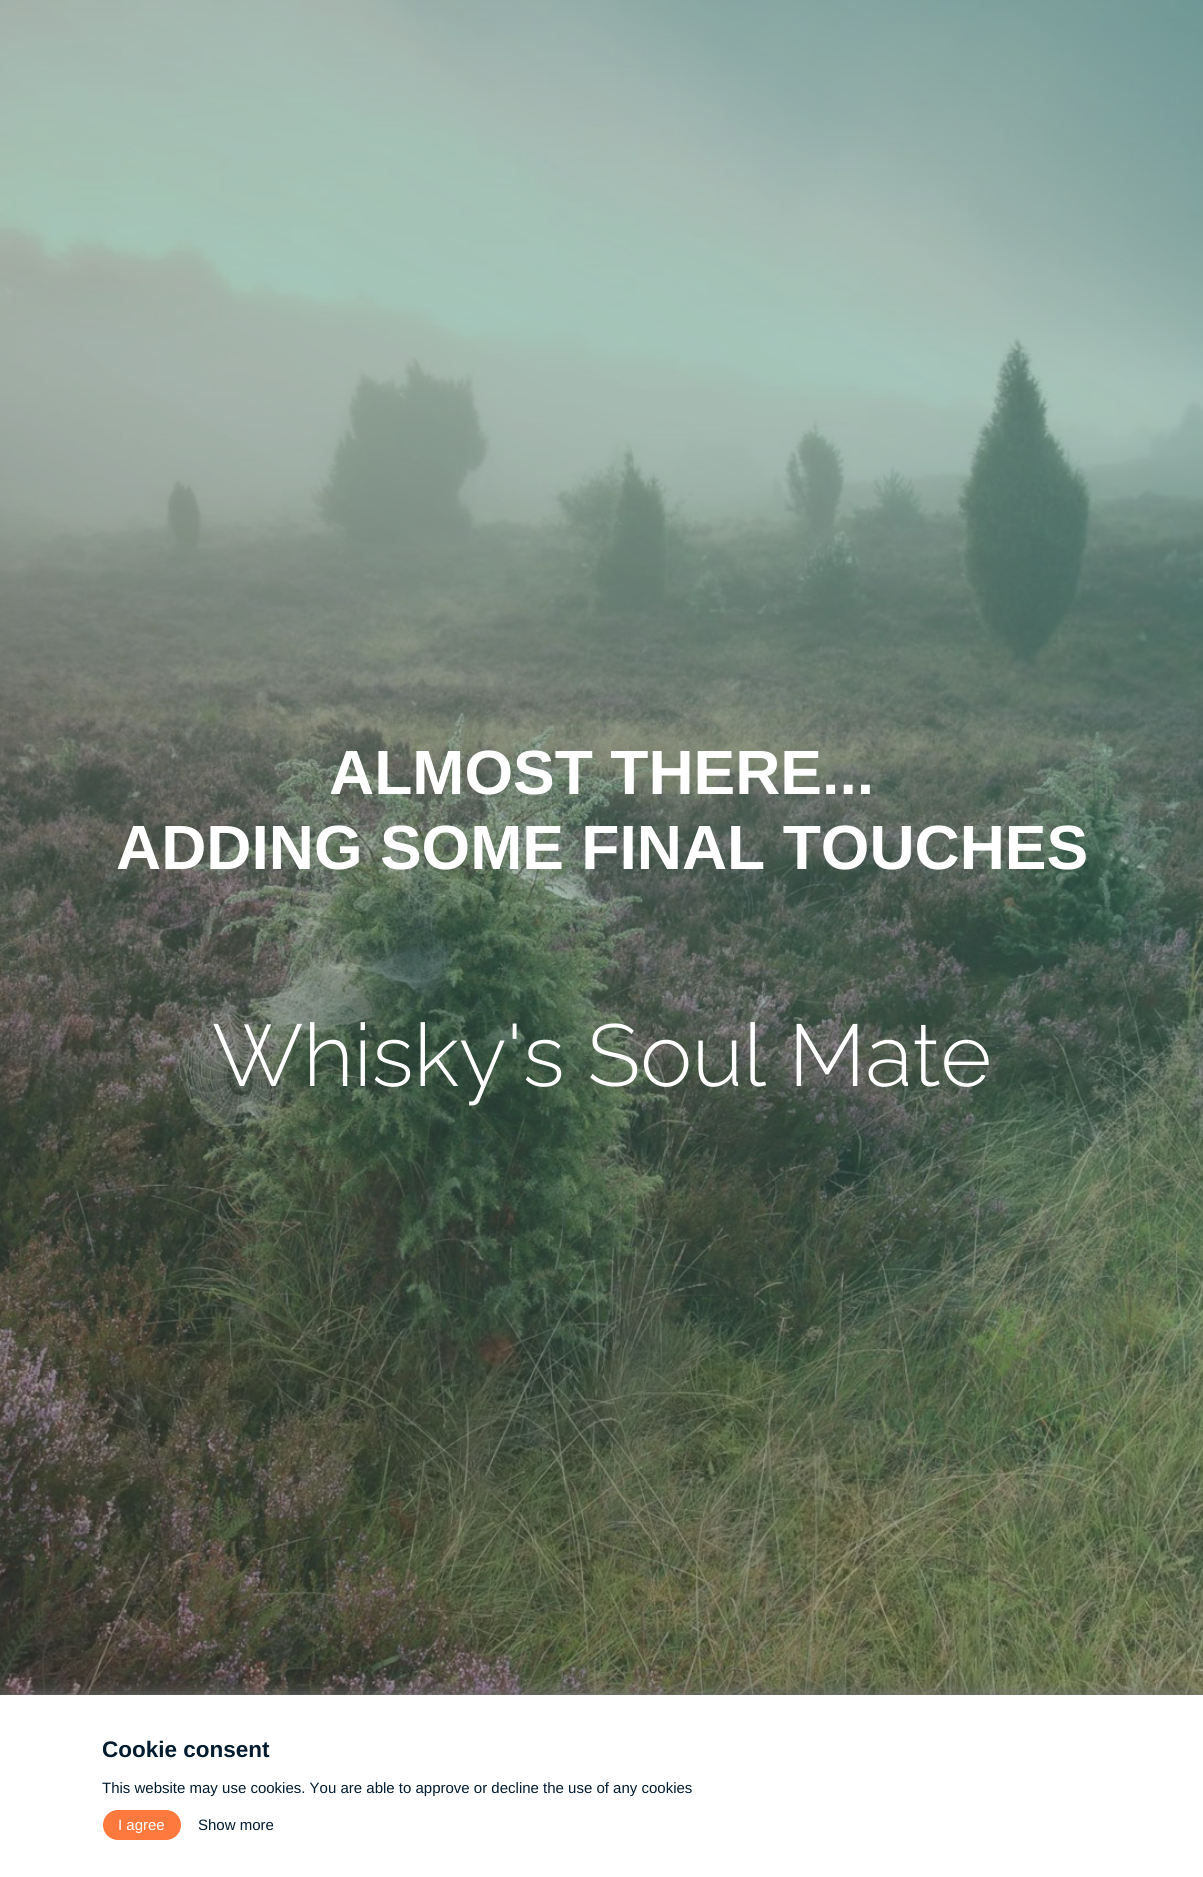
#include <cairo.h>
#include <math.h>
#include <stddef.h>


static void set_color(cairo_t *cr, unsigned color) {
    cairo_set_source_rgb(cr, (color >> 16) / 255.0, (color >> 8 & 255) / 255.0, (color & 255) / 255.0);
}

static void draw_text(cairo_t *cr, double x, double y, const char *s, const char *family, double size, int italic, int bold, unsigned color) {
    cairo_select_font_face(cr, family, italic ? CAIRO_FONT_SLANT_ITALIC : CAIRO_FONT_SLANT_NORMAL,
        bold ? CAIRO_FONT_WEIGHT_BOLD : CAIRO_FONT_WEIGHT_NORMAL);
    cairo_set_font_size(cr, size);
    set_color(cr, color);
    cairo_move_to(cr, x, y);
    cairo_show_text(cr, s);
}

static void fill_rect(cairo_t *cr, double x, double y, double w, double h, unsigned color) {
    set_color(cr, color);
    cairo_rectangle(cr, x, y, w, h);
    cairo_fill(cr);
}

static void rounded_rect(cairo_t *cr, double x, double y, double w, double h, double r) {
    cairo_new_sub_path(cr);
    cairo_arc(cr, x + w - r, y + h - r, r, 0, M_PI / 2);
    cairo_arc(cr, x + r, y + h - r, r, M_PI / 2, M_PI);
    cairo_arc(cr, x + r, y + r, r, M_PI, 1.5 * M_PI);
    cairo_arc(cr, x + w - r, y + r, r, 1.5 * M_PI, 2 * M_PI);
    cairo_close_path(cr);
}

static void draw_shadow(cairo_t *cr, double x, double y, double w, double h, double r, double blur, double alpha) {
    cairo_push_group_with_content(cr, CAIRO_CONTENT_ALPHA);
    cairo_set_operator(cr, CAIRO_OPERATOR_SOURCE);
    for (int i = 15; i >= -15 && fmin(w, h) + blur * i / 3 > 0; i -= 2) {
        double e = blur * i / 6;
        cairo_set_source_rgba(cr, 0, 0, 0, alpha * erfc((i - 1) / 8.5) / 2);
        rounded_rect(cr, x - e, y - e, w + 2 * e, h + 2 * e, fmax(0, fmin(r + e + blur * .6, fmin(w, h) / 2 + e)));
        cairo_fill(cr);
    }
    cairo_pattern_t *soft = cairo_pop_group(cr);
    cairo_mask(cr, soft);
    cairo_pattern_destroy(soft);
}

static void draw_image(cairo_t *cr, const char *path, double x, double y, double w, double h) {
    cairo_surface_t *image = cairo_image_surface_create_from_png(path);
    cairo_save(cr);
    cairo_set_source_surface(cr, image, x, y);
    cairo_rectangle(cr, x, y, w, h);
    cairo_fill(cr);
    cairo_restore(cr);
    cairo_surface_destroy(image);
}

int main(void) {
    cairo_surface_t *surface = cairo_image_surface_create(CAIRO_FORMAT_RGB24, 1203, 1877);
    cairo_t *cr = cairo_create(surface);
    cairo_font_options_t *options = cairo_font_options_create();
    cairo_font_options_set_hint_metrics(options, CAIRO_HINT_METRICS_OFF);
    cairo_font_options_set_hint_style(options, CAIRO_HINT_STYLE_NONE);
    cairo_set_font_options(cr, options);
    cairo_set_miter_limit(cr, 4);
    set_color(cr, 0xFFFFFF);
    cairo_paint(cr);
    draw_image(cr, "assets/img1.png", 0, 0, 1203, 1695);
    draw_text(cr, 329, 794, "ALMOST THERE...", "Liberation Sans", 62.5, 0, 1, 0xFFFFFF);
    draw_text(cr, 116, 869, "ADDING SOME FINAL TOUCHES", "Liberation Sans", 62.5, 0, 1, 0xFFFFFF);
    draw_text(cr, 212, 1086, "Whisky's Soul Mate", "Raleway Light", 87.5, 0, 0, 0xFFFFFF);
    set_color(cr, 0x747474);
    draw_shadow(cr, 0, 1695, 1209, 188, 0, 9, 1);
    fill_rect(cr, 0, 1695, 1203, 182, 0xFFFFFF);
    draw_text(cr, 102, 1757, "Cookie consent", "Liberation Sans", 22.5, 0, 1, 0x011B2F);
    draw_text(cr, 102, 1793, "This website may use cookies. You are able to approve or decline the use of any cookies", "Liberation Sans", 15, 0, 0, 0x011B2F);
    set_color(cr, 0xFE793E);
    rounded_rect(cr, 103, 1810, 78, 30, 15);
    cairo_fill(cr);
    draw_text(cr, 118, 1830, "I agree", "Liberation Sans", 15, 0, 0, 0xFFFFFF);
    draw_text(cr, 198, 1830, "Show more", "Liberation Sans", 15, 0, 0, 0x011B2F);
    cairo_surface_write_to_png(surface, "output.png");
    cairo_font_options_destroy(options);
    cairo_destroy(cr);
    cairo_surface_destroy(surface);
    return 0;
}
